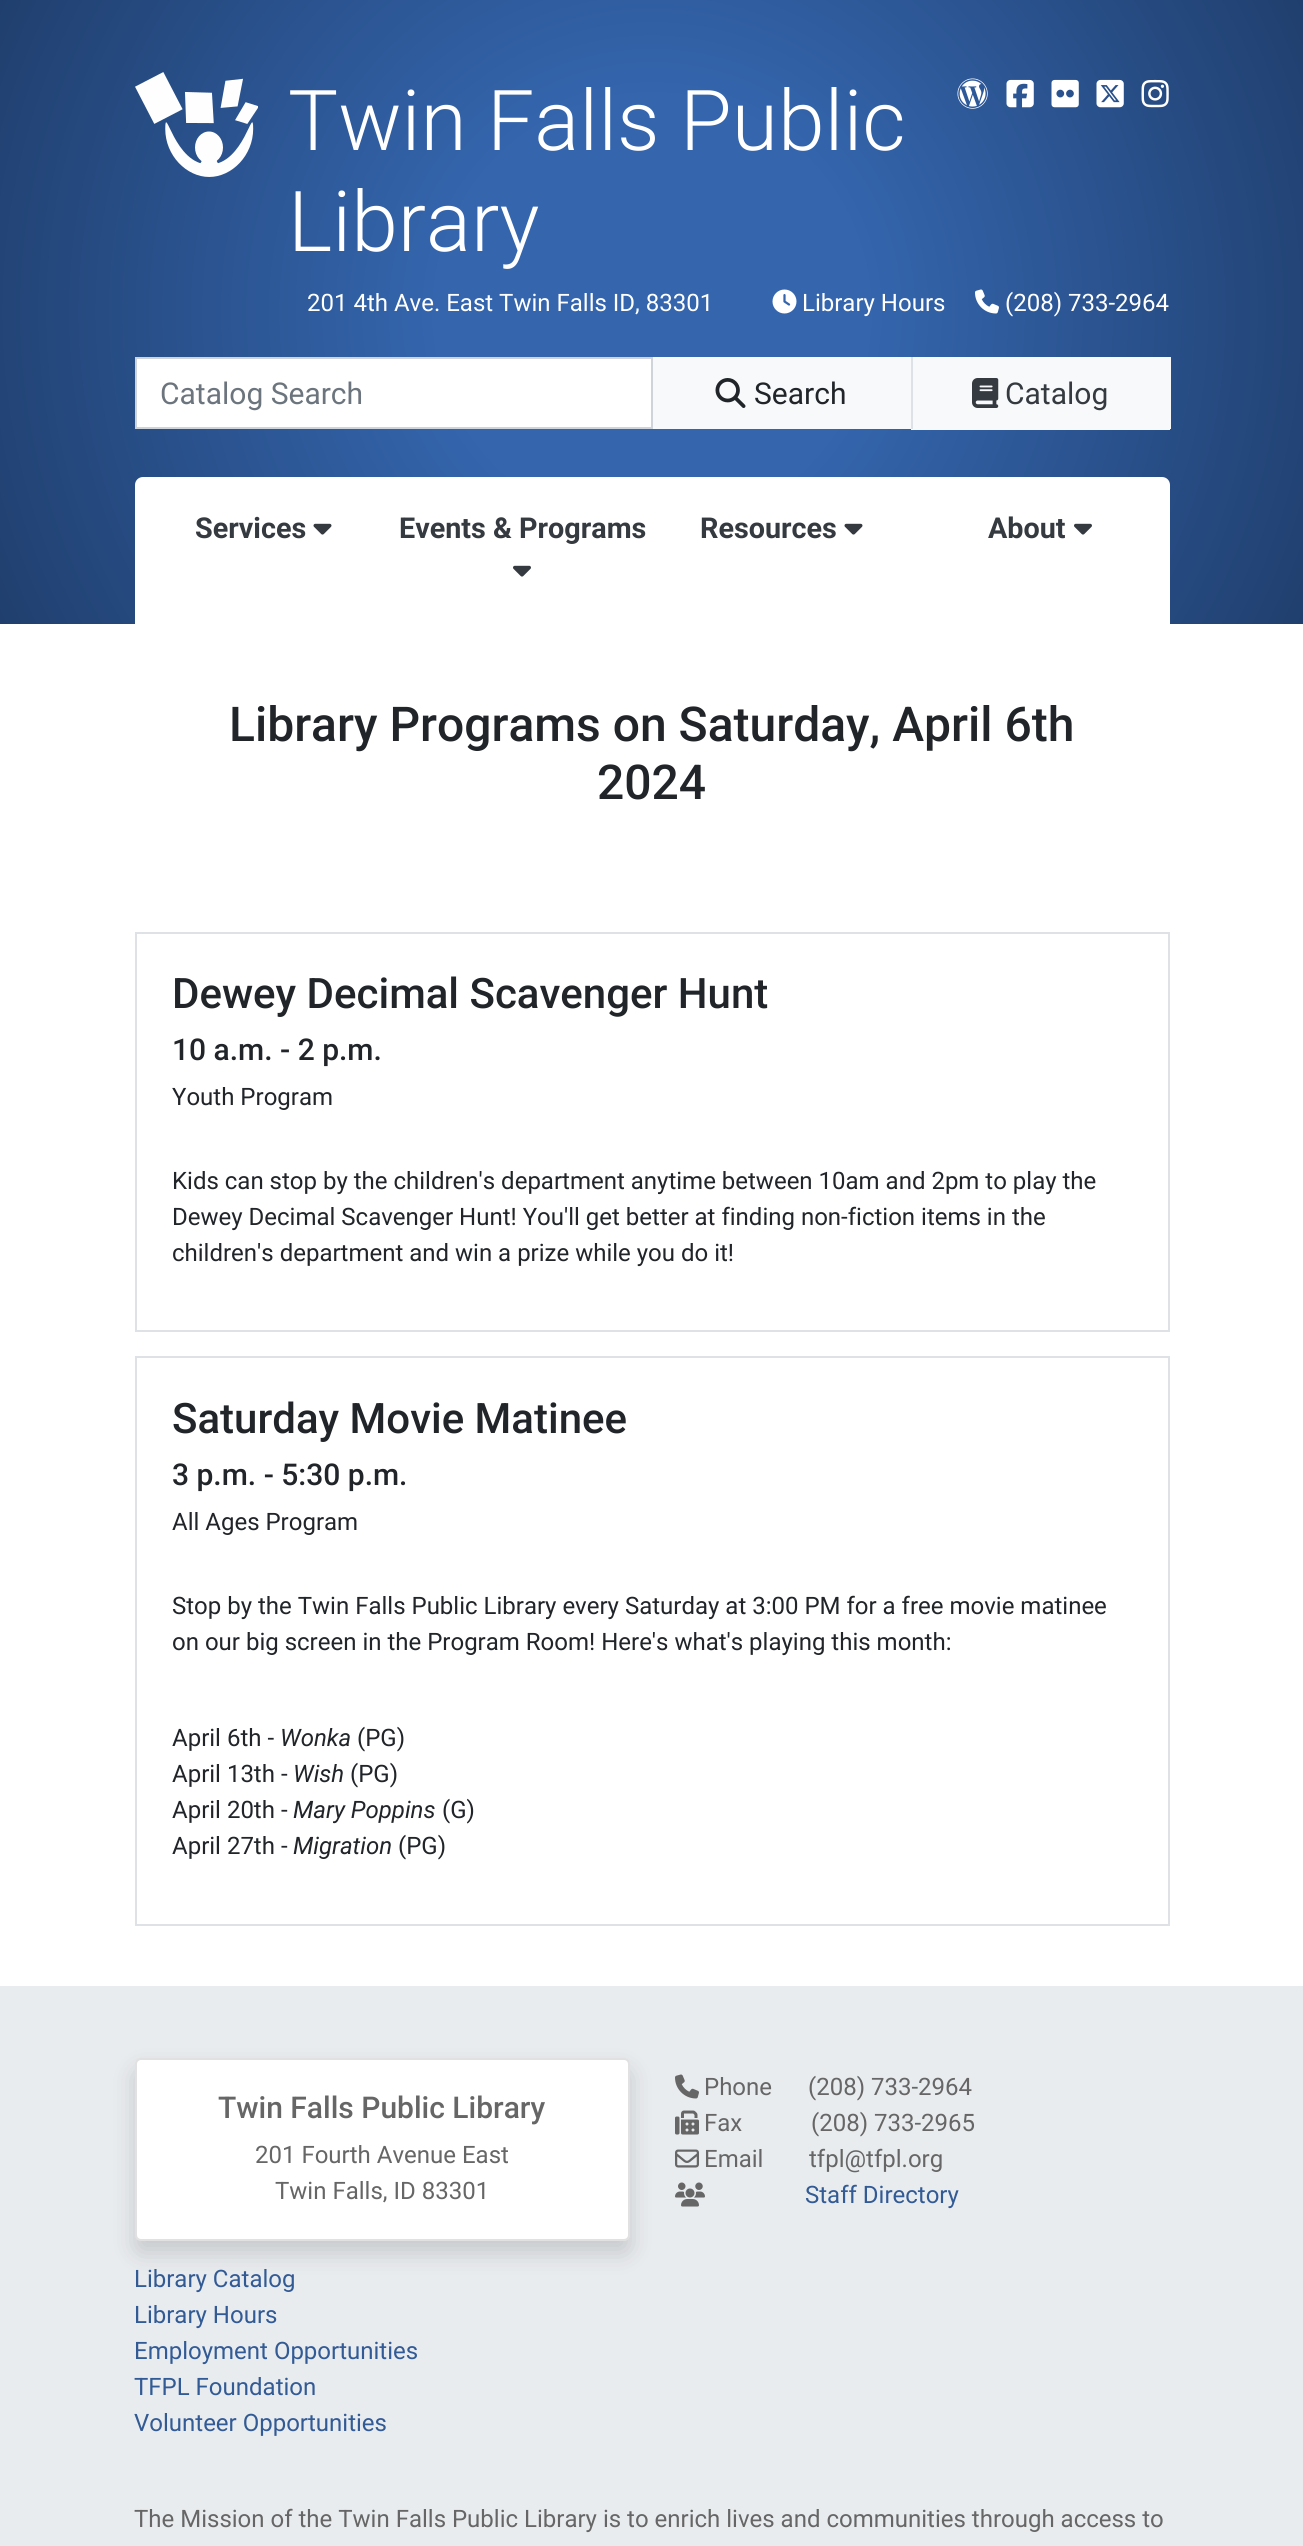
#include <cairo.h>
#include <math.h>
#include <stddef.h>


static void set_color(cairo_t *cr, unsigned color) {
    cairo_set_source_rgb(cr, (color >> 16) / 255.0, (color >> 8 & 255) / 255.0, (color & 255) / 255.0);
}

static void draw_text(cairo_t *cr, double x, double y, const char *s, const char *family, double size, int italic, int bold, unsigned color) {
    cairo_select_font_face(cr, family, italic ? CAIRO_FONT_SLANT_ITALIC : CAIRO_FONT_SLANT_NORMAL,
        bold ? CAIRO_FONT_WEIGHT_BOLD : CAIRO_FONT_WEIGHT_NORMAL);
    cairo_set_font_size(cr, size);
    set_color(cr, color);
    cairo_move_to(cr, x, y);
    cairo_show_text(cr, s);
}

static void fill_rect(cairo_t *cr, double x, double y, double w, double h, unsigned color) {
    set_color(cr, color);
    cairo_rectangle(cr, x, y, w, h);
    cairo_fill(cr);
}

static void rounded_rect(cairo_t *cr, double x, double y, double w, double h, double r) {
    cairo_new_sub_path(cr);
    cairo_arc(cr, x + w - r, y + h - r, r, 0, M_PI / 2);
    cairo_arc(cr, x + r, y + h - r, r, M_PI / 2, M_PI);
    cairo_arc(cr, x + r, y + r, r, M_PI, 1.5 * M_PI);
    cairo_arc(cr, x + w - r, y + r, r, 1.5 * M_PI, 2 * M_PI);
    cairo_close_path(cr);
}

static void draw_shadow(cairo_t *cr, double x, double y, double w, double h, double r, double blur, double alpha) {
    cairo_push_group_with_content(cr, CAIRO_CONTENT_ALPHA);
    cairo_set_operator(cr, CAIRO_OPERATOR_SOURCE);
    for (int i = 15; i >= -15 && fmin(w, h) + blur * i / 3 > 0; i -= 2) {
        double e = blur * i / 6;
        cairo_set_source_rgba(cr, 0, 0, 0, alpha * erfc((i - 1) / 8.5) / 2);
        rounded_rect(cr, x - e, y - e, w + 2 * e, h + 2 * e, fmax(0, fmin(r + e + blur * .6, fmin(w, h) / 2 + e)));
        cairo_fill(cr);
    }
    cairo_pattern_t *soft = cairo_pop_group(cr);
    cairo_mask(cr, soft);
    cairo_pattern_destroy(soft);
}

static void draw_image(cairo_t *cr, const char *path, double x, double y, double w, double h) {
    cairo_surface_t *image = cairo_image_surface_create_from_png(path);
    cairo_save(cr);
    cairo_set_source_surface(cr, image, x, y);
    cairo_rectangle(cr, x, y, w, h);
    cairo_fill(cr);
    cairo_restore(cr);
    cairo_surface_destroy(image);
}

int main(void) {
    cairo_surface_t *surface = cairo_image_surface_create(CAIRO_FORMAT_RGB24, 1303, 2546);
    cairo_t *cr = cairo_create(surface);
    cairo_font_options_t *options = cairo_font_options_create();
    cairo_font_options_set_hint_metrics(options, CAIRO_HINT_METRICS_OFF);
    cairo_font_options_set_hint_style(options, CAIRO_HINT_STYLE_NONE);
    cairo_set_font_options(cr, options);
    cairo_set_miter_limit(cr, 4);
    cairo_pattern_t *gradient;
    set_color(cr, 0xFFFFFF);
    cairo_paint(cr);
    gradient = cairo_pattern_create_radial(652, 312, 0, 652, 312, 723);
    cairo_pattern_add_color_stop_rgba(gradient, 0.3, 0.204, 0.396, 0.678, 1);
    cairo_pattern_add_color_stop_rgba(gradient, 1, 0.125, 0.247, 0.431, 1);
    cairo_set_source(cr, gradient);
    cairo_pattern_destroy(gradient);
    cairo_rectangle(cr, 0, 0, 1303, 624);
    cairo_fill(cr);
    draw_image(cr, "assets/img1.png", 135, 72, 123, 105);
    draw_text(cr, 288, 150, "Twin Falls Public", "Roboto Light", 84, 0, 0, 0xFFFFFF);
    draw_text(cr, 288, 251, "Library", "Roboto Light", 84, 0, 0, 0xFFFFFF);
    draw_image(cr, "assets/img2.png", 957, 78, 31, 31);
    draw_image(cr, "assets/img3.png", 1006, 79, 28, 29);
    draw_image(cr, "assets/img4.png", 1051, 79, 28, 29);
    draw_image(cr, "assets/img5.png", 1096, 79, 28, 29);
    draw_image(cr, "assets/img6.png", 1141, 79, 28, 29);
    draw_text(cr, 307, 311, "201 4th Ave. East Twin Falls ID, 83301", "Roboto", 24, 0, 0, 0xFFFFFF);
    draw_image(cr, "assets/img7.png", 772, 289, 25, 25);
    draw_text(cr, 802, 311, "Library Hours", "Roboto", 24, 0, 0, 0xFFFFFF);
    draw_image(cr, "assets/img8.png", 975, 289, 24, 25);
    draw_text(cr, 1005, 311, "(208) 733-2964", "Roboto", 24, 0, 0, 0xFFFFFF);
    cairo_rectangle(cr, 136, 358, 516, 70);
    cairo_fill_preserve(cr);
    set_color(cr, 0xCED4DA);
    cairo_stroke(cr);
    draw_text(cr, 160, 404, "Catalog Search", "Roboto", 30, 0, 0, 0x6C757D);
    set_color(cr, 0xF8F9FA);
    cairo_rectangle(cr, 654, 358, 256, 70);
    cairo_fill_preserve(cr);
    cairo_stroke(cr);
    draw_image(cr, "assets/img9.png", 715, 378, 31, 30);
    draw_text(cr, 754, 404, "Search", "Roboto", 30, 0, 0, 0x212529);
    fill_rect(cr, 913, 359, 256, 69, 0xF8F9FA);
    fill_rect(cr, 911, 357, 259, 2, 0xF8F9FA);
    fill_rect(cr, 1169, 357, 2, 72, 0xF8F9FA);
    fill_rect(cr, 911, 428, 259, 2, 0xF8F9FA);
    fill_rect(cr, 911, 357, 2, 72, 0xDEE2E6);
    draw_image(cr, "assets/img10.png", 972, 378, 27, 30);
    draw_text(cr, 1005, 404, "Catalog", "Roboto", 30, 0, 0, 0x343A40);
    set_color(cr, 0xFFFFFF);
    cairo_new_path(cr);
    cairo_move_to(cr, 143, 477);
    cairo_line_to(cr, 1162, 477);
    cairo_curve_to(cr, 1166.5, 477, 1170, 480.5, 1170, 485);
    cairo_line_to(cr, 1170, 624);
    cairo_line_to(cr, 135, 624);
    cairo_line_to(cr, 135, 485);
    cairo_curve_to(cr, 135, 480.5, 138.5, 477, 143, 477);
    cairo_close_path(cr);
    cairo_fill(cr);
    draw_text(cr, 195, 538, "Services", "Roboto", 28.75, 0, 1, 0x343A40);
    draw_image(cr, "assets/img11.png", 313, 523, 19, 12);
    draw_text(cr, 399, 538, "Events & Programs", "Roboto", 28.75, 0, 1, 0x343A40);
    draw_image(cr, "assets/img12.png", 513, 565, 18, 12);
    draw_text(cr, 700, 538, "Resources", "Roboto", 28.75, 0, 1, 0x343A40);
    draw_image(cr, "assets/img11.png", 844, 523, 19, 12);
    draw_text(cr, 988, 538, "About", "Roboto", 28.75, 0, 1, 0x343A40);
    draw_image(cr, "assets/img12.png", 1074, 523, 18, 12);
    draw_text(cr, 229, 741, "Library Programs on Saturday, April 6th", "Roboto Medium", 48, 0, 0, 0x212529);
    draw_text(cr, 597, 799, "2024", "Roboto Medium", 48, 0, 0, 0x212529);
    cairo_rectangle(cr, 136, 933, 1033, 398);
    set_color(cr, 0xDEE2E6);
    cairo_stroke(cr);
    draw_text(cr, 172, 1008, "Dewey Decimal Scavenger Hunt", "Roboto Medium", 42, 0, 0, 0x212529);
    draw_text(cr, 172, 1060, "10 a.m. - 2 p.m.", "Roboto Medium", 30, 0, 0, 0x212529);
    draw_text(cr, 172, 1105, "Youth Program", "Roboto", 24, 0, 0, 0x212529);
    draw_text(cr, 172, 1189, "Kids can stop by the children's department anytime between 10am and 2pm to play the", "Roboto", 24, 0, 0, 0x212529);
    draw_text(cr, 172, 1225, "Dewey Decimal Scavenger Hunt! You'll get better at finding non-fiction items in the", "Roboto", 24, 0, 0, 0x212529);
    draw_text(cr, 172, 1261, "children's department and win a prize while you do it!", "Roboto", 24, 0, 0, 0x212529);
    cairo_rectangle(cr, 136, 1357, 1033, 568);
    set_color(cr, 0xDEE2E6);
    cairo_stroke(cr);
    draw_text(cr, 172, 1433, "Saturday Movie Matinee", "Roboto Medium", 42, 0, 0, 0x212529);
    draw_text(cr, 172, 1485, "3 p.m. - 5:30 p.m.", "Roboto Medium", 30, 0, 0, 0x212529);
    draw_text(cr, 172, 1530, "All Ages Program", "Roboto", 24, 0, 0, 0x212529);
    draw_text(cr, 172, 1614, "Stop by the Twin Falls Public Library every Saturday at 3:00 PM for a free movie matinee", "Roboto", 24, 0, 0, 0x212529);
    draw_text(cr, 172, 1650, "on our big screen in the Program Room! Here's what's playing this month:", "Roboto", 24, 0, 0, 0x212529);
    draw_text(cr, 172, 1746, "April 6th -", "Roboto", 24, 0, 0, 0x212529);
    draw_text(cr, 280, 1746, "Wonka", "Roboto", 24, 1, 0, 0x212529);
    draw_text(cr, 357, 1746, "(PG)", "Roboto", 24, 0, 0, 0x212529);
    draw_text(cr, 172, 1782, "April 13th -", "Roboto", 24, 0, 0, 0x212529);
    draw_text(cr, 293, 1782, "Wish", "Roboto", 24, 1, 0, 0x212529);
    draw_text(cr, 350, 1782, "(PG)", "Roboto", 24, 0, 0, 0x212529);
    draw_text(cr, 172, 1818, "April 20th -", "Roboto", 24, 0, 0, 0x212529);
    draw_text(cr, 293, 1818, "Mary Poppins", "Roboto", 24, 1, 0, 0x212529);
    draw_text(cr, 442, 1818, "(G)", "Roboto", 24, 0, 0, 0x212529);
    draw_text(cr, 172, 1854, "April 27th -", "Roboto", 24, 0, 0, 0x212529);
    draw_text(cr, 293, 1854, "Migration", "Roboto", 24, 1, 0, 0x212529);
    draw_text(cr, 398, 1854, "(PG)", "Roboto", 24, 0, 0, 0x212529);
    fill_rect(cr, 0, 1986, 1303, 560, 0xE9ECEF);
    set_color(cr, 0x000000);
    draw_shadow(cr, 135, 2070, 495, 183, 6, 12, 0.15);
    set_color(cr, 0xFFFFFF);
    rounded_rect(cr, 135, 2058, 495, 183, 6);
    cairo_fill(cr);
    rounded_rect(cr, 136, 2059, 493, 181, 5);
    cairo_set_source_rgba(cr, 0, 0, 0, 0.12);
    cairo_stroke(cr);
    draw_text(cr, 218, 2118, "Twin Falls Public Library", "Roboto Medium", 30, 0, 0, 0x666666);
    draw_text(cr, 255, 2163, "201 Fourth Avenue East", "Roboto", 24, 0, 0, 0x666666);
    draw_text(cr, 275, 2199, "Twin Falls, ID 83301", "Roboto", 24, 0, 0, 0x666666);
    draw_image(cr, "assets/img13.png", 675, 2074, 24, 25);
    draw_text(cr, 704, 2095, "Phone", "Roboto", 24, 0, 0, 0x666666);
    draw_text(cr, 808, 2095, "(208) 733-2964", "Roboto", 24, 0, 0, 0x666666);
    draw_image(cr, "assets/img14.png", 675, 2110, 24, 25);
    draw_text(cr, 704, 2131, "Fax", "Roboto", 24, 0, 0, 0x666666);
    draw_text(cr, 811, 2131, "(208) 733-2965", "Roboto", 24, 0, 0, 0x666666);
    draw_image(cr, "assets/img15.png", 675, 2149, 24, 19);
    draw_text(cr, 704, 2167, "Email", "Roboto", 24, 0, 0, 0x666666);
    draw_text(cr, 809, 2167, "tfpl@tfpl.org", "Roboto", 24, 0, 0, 0x666666);
    draw_image(cr, "assets/img16.png", 675, 2182, 30, 25);
    draw_text(cr, 805, 2203, "Staff Directory", "Roboto", 24, 0, 0, 0x325A95);
    draw_text(cr, 134, 2287, "Library Catalog", "Roboto", 24, 0, 0, 0x325A95);
    draw_text(cr, 134, 2323, "Library Hours", "Roboto", 24, 0, 0, 0x325A95);
    draw_text(cr, 134, 2359, "Employment Opportunities", "Roboto", 24, 0, 0, 0x325A95);
    draw_text(cr, 134, 2395, "TFPL Foundation", "Roboto", 24, 0, 0, 0x325A95);
    draw_text(cr, 134, 2431, "Volunteer Opportunities", "Roboto", 24, 0, 0, 0x325A95);
    draw_text(cr, 134, 2527, "The Mission of the Twin Falls Public Library is to enrich lives and communities through access to", "Roboto", 24, 0, 0, 0x666666);
    cairo_surface_write_to_png(surface, "output.png");
    cairo_font_options_destroy(options);
    cairo_destroy(cr);
    cairo_surface_destroy(surface);
    return 0;
}
